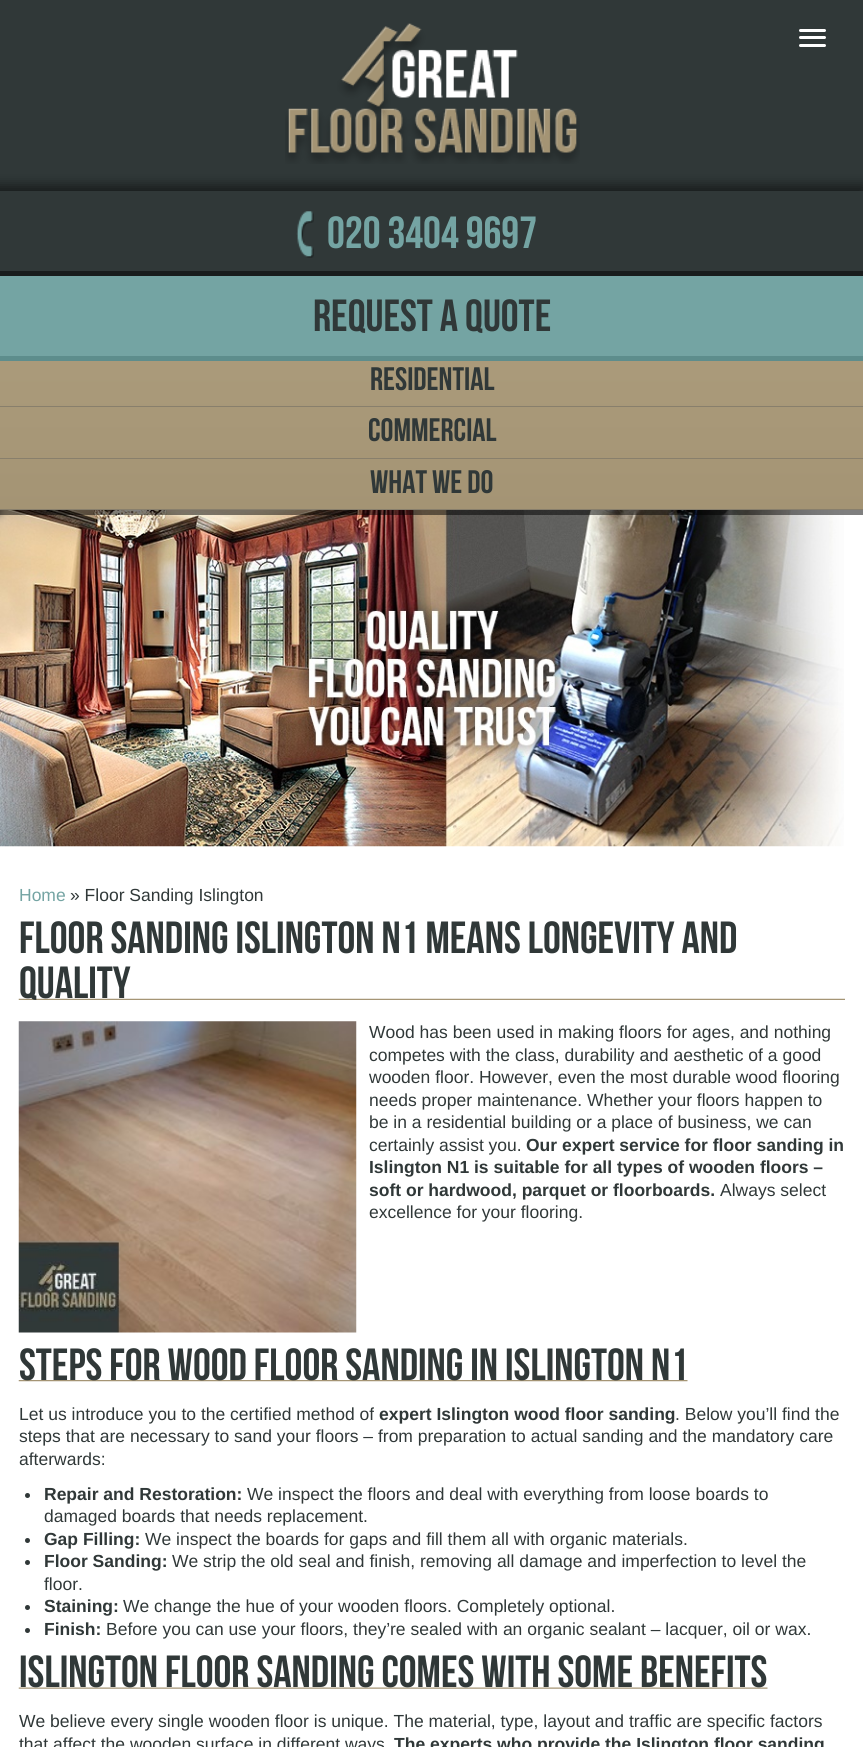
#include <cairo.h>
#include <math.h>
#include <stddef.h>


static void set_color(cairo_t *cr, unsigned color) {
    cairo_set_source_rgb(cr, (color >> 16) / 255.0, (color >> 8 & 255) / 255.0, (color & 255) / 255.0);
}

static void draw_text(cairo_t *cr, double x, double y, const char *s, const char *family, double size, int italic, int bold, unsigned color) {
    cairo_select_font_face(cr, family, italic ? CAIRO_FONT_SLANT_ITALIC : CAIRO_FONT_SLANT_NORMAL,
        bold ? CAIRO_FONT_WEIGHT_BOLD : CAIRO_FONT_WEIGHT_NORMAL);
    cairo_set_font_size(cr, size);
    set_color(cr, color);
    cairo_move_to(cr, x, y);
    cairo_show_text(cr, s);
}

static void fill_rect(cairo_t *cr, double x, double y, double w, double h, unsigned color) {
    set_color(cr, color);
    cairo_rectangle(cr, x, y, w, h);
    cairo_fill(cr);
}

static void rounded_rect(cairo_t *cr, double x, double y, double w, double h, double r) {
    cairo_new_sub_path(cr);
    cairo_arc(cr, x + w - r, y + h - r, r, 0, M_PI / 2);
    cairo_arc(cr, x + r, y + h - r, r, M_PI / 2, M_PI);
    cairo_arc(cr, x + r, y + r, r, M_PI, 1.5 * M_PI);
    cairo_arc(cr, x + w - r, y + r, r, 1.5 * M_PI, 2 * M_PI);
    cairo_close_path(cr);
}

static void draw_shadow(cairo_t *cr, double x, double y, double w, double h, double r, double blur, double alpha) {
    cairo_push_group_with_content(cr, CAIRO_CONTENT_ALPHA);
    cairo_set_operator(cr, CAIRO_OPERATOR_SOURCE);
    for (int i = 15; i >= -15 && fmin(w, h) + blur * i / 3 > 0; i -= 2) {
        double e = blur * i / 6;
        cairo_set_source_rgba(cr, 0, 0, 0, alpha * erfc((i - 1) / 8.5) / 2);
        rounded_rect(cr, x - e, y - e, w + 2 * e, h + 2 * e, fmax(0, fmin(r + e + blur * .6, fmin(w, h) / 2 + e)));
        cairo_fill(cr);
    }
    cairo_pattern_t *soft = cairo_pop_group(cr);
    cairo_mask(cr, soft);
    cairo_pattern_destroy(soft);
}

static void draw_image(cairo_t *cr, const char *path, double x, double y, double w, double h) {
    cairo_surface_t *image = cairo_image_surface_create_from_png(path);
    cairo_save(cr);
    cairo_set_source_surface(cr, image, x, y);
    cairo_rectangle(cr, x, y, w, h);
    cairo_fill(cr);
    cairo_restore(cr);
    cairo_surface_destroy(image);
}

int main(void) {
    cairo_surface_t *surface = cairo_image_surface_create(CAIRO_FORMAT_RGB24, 863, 1747);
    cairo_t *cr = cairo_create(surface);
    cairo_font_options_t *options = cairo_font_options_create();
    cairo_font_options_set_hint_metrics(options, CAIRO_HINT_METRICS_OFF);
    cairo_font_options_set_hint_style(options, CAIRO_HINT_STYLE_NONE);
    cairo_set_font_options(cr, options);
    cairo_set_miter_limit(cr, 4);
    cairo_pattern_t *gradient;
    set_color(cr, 0xFFFFFF);
    cairo_paint(cr);
    fill_rect(cr, 0, 0, 863, 276, 0x303838);
    draw_image(cr, "assets/img1.png", 285, 23, 295, 141);
    set_color(cr, 0xFFFFFF);
    rounded_rect(cr, 799, 29, 27, 3, 1.5);
    cairo_fill(cr);
    rounded_rect(cr, 799, 36, 27, 3, 1.5);
    cairo_fill(cr);
    rounded_rect(cr, 799, 44, 27, 3, 1.5);
    cairo_fill(cr);
    cairo_save(cr);
    cairo_set_fill_rule(cr, CAIRO_FILL_RULE_EVEN_ODD);
    cairo_new_path(cr);
    cairo_move_to(cr, 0, 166);
    cairo_line_to(cr, 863, 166);
    cairo_line_to(cr, 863, 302);
    cairo_line_to(cr, 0, 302);
    cairo_close_path(cr);
    cairo_move_to(cr, 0, 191);
    cairo_line_to(cr, 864, 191);
    cairo_line_to(cr, 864, 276);
    cairo_line_to(cr, 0, 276);
    cairo_close_path(cr);
    cairo_clip(cr);
    set_color(cr, 0x000000);
    draw_shadow(cr, -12, 185, 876, 98, 0, 6, 0.5);
    cairo_restore(cr);
    draw_image(cr, "assets/img2.png", 296, 211, 18, 47);
    draw_text(cr, 327, 248, "020 3404 9697", "Bebas Neue", 45, 0, 0, 0x74A4A3);
    draw_image(cr, "assets/img3.png", 0, 510, 844, 337);
    cairo_rectangle(cr, -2.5, 273.5, 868, 239);
    cairo_set_source_rgba(cr, 0, 0, 0, 0.5);
    cairo_set_line_width(cr, 5);
    cairo_stroke(cr);
    gradient = cairo_pattern_create_linear(432, 276, 432, 510);
    cairo_pattern_add_color_stop_rgba(gradient, 0, 0.682, 0.62, 0.494, 1);
    cairo_pattern_add_color_stop_rgba(gradient, 1, 0.643, 0.58, 0.455, 1);
    cairo_set_source(cr, gradient);
    cairo_pattern_destroy(gradient);
    cairo_rectangle(cr, 0, 361, 863, 148);
    cairo_fill(cr);
    set_color(cr, 0x5D8D8C);
    cairo_new_path(cr);
    cairo_move_to(cr, 0, 356);
    cairo_line_to(cr, 0, 361);
    cairo_line_to(cr, 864, 361);
    cairo_line_to(cr, 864, 281);
    cairo_line_to(cr, 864, 356);
    cairo_close_path(cr);
    cairo_fill(cr);
    fill_rect(cr, 0, 276, 863, 80, 0x74A4A3);
    draw_text(cr, 313, 331, "Request a Quote", "Bebas Neue", 45, 0, 0, 0x303838);
    fill_rect(cr, 0, 406, 863, 1, 0x887F6C);
    draw_text(cr, 370, 390, "Residential", "Bebas Neue", 32.5, 0, 0, 0x303838);
    fill_rect(cr, 0, 458, 863, 1, 0x887F6C);
    draw_text(cr, 368, 441, "Commercial", "Bebas Neue", 32.5, 0, 0, 0x303838);
    fill_rect(cr, 0, 509, 863, 1, 0x887F6C);
    draw_text(cr, 370, 493, "What We Do", "Bebas Neue", 32.5, 0, 0, 0x303838);
    draw_text(cr, 19, 901, "Home", "Liberation Sans", 17.5, 0, 0, 0x74A4A3);
    draw_text(cr, 70, 901, "» Floor Sanding Islington", "Liberation Sans", 17.5, 0, 0, 0x303838);
    draw_image(cr, "assets/img4.png", 18, 998, 827, 2);
    draw_text(cr, 19, 953, "Floor Sanding Islington N1 Means Longevity and", "Bebas Neue", 45, 0, 0, 0x303838);
    draw_text(cr, 19, 998, "Quality", "Bebas Neue", 45, 0, 0, 0x303838);
    draw_image(cr, "assets/img5.png", 18, 1021, 339, 312);
    draw_text(cr, 369, 1038, "Wood has been used in making floors for ages, and nothing", "Liberation Sans", 17.5, 0, 0, 0x303838);
    draw_text(cr, 369, 1061, "competes with the class, durability and aesthetic of a good", "Liberation Sans", 17.5, 0, 0, 0x303838);
    draw_text(cr, 369, 1083, "wooden floor. However, even the most durable wood flooring", "Liberation Sans", 17.5, 0, 0, 0x303838);
    draw_text(cr, 369, 1106, "needs proper maintenance. Whether your floors happen to", "Liberation Sans", 17.5, 0, 0, 0x303838);
    draw_text(cr, 369, 1128, "be in a residential building or a place of business, we can", "Liberation Sans", 17.5, 0, 0, 0x303838);
    draw_text(cr, 369, 1151, "certainly assist you.", "Liberation Sans", 17.5, 0, 0, 0x303838);
    draw_text(cr, 526, 1151, "Our expert service for floor sanding in", "Liberation Sans", 17.5, 0, 1, 0x303838);
    draw_text(cr, 369, 1173, "Islington N1 is suitable for all types of wooden floors –", "Liberation Sans", 17.5, 0, 1, 0x303838);
    draw_text(cr, 369, 1196, "soft or hardwood, parquet or floorboards.", "Liberation Sans", 17.5, 0, 1, 0x303838);
    draw_text(cr, 720, 1196, "Always select", "Liberation Sans", 17.5, 0, 0, 0x303838);
    draw_text(cr, 369, 1218, "excellence for your flooring.", "Liberation Sans", 17.5, 0, 0, 0x303838);
    draw_image(cr, "assets/img6.png", 18, 1380, 670, 2);
    draw_text(cr, 19, 1380, "Steps for Wood Floor Sanding in Islington N1", "Bebas Neue", 45, 0, 0, 0x303838);
    draw_text(cr, 19, 1420, "Let us introduce you to the certified method of", "Liberation Sans", 17.5, 0, 0, 0x303838);
    draw_text(cr, 379, 1420, "expert Islington wood floor sanding", "Liberation Sans", 17.5, 0, 1, 0x303838);
    draw_text(cr, 675, 1420, ". Below you’ll find the", "Liberation Sans", 17.5, 0, 0, 0x303838);
    draw_text(cr, 19, 1442, "steps that are necessary to sand your floors – from preparation to actual sanding and the mandatory care", "Liberation Sans", 17.5, 0, 0, 0x303838);
    draw_text(cr, 19, 1465, "afterwards:", "Liberation Sans", 17.5, 0, 0, 0x303838);
    cairo_new_path(cr);
    cairo_arc(cr, 27.5, 1495.5, 2.5, 0, 2 * M_PI);
    cairo_fill(cr);
    draw_text(cr, 44, 1500, "Repair and Restoration:", "Liberation Sans", 17.5, 0, 1, 0x303838);
    draw_text(cr, 247, 1500, "We inspect the floors and deal with everything from loose boards to", "Liberation Sans", 17.5, 0, 0, 0x303838);
    draw_text(cr, 44, 1522, "damaged boards that needs replacement.", "Liberation Sans", 17.5, 0, 0, 0x303838);
    cairo_new_path(cr);
    cairo_arc(cr, 27.5, 1540.5, 2.5, 0, 2 * M_PI);
    cairo_fill(cr);
    draw_text(cr, 44, 1545, "Gap Filling:", "Liberation Sans", 17.5, 0, 1, 0x303838);
    draw_text(cr, 145, 1545, "We inspect the boards for gaps and fill them all with organic materials.", "Liberation Sans", 17.5, 0, 0, 0x303838);
    cairo_new_path(cr);
    cairo_arc(cr, 27.5, 1562.5, 2.5, 0, 2 * M_PI);
    cairo_fill(cr);
    draw_text(cr, 44, 1567, "Floor Sanding:", "Liberation Sans", 17.5, 0, 1, 0x303838);
    draw_text(cr, 172, 1567, "We strip the old seal and finish, removing all damage and imperfection to level the", "Liberation Sans", 17.5, 0, 0, 0x303838);
    draw_text(cr, 44, 1590, "floor.", "Liberation Sans", 17.5, 0, 0, 0x303838);
    cairo_new_path(cr);
    cairo_arc(cr, 27.5, 1607.5, 2.5, 0, 2 * M_PI);
    cairo_fill(cr);
    draw_text(cr, 44, 1612, "Staining:", "Liberation Sans", 17.5, 0, 1, 0x303838);
    draw_text(cr, 123, 1612, "We change the hue of your wooden floors. Completely optional.", "Liberation Sans", 17.5, 0, 0, 0x303838);
    cairo_new_path(cr);
    cairo_arc(cr, 27.5, 1630.5, 2.5, 0, 2 * M_PI);
    cairo_fill(cr);
    draw_text(cr, 44, 1635, "Finish:", "Liberation Sans", 17.5, 0, 1, 0x303838);
    draw_text(cr, 106, 1635, "Before you can use your floors, they’re sealed with an organic sealant – lacquer, oil or wax.", "Liberation Sans", 17.5, 0, 0, 0x303838);
    draw_image(cr, "assets/img7.png", 18, 1687, 750, 2);
    draw_text(cr, 19, 1687, "Islington Floor Sanding Comes With Some Benefits", "Bebas Neue", 45, 0, 0, 0x303838);
    draw_text(cr, 19, 1727, "We believe every single wooden floor is unique. The material, type, layout and traffic are specific factors", "Liberation Sans", 17.5, 0, 0, 0x303838);
    draw_text(cr, 19, 1750, "that affect the wooden surface in different ways", "Liberation Sans", 17.5, 0, 0, 0x303838);
    draw_text(cr, 394, 1750, "The experts who provide the Islington floor sanding", "Liberation Sans", 17.5, 0, 1, 0x303838);
    cairo_surface_write_to_png(surface, "output.png");
    cairo_font_options_destroy(options);
    cairo_destroy(cr);
    cairo_surface_destroy(surface);
    return 0;
}
